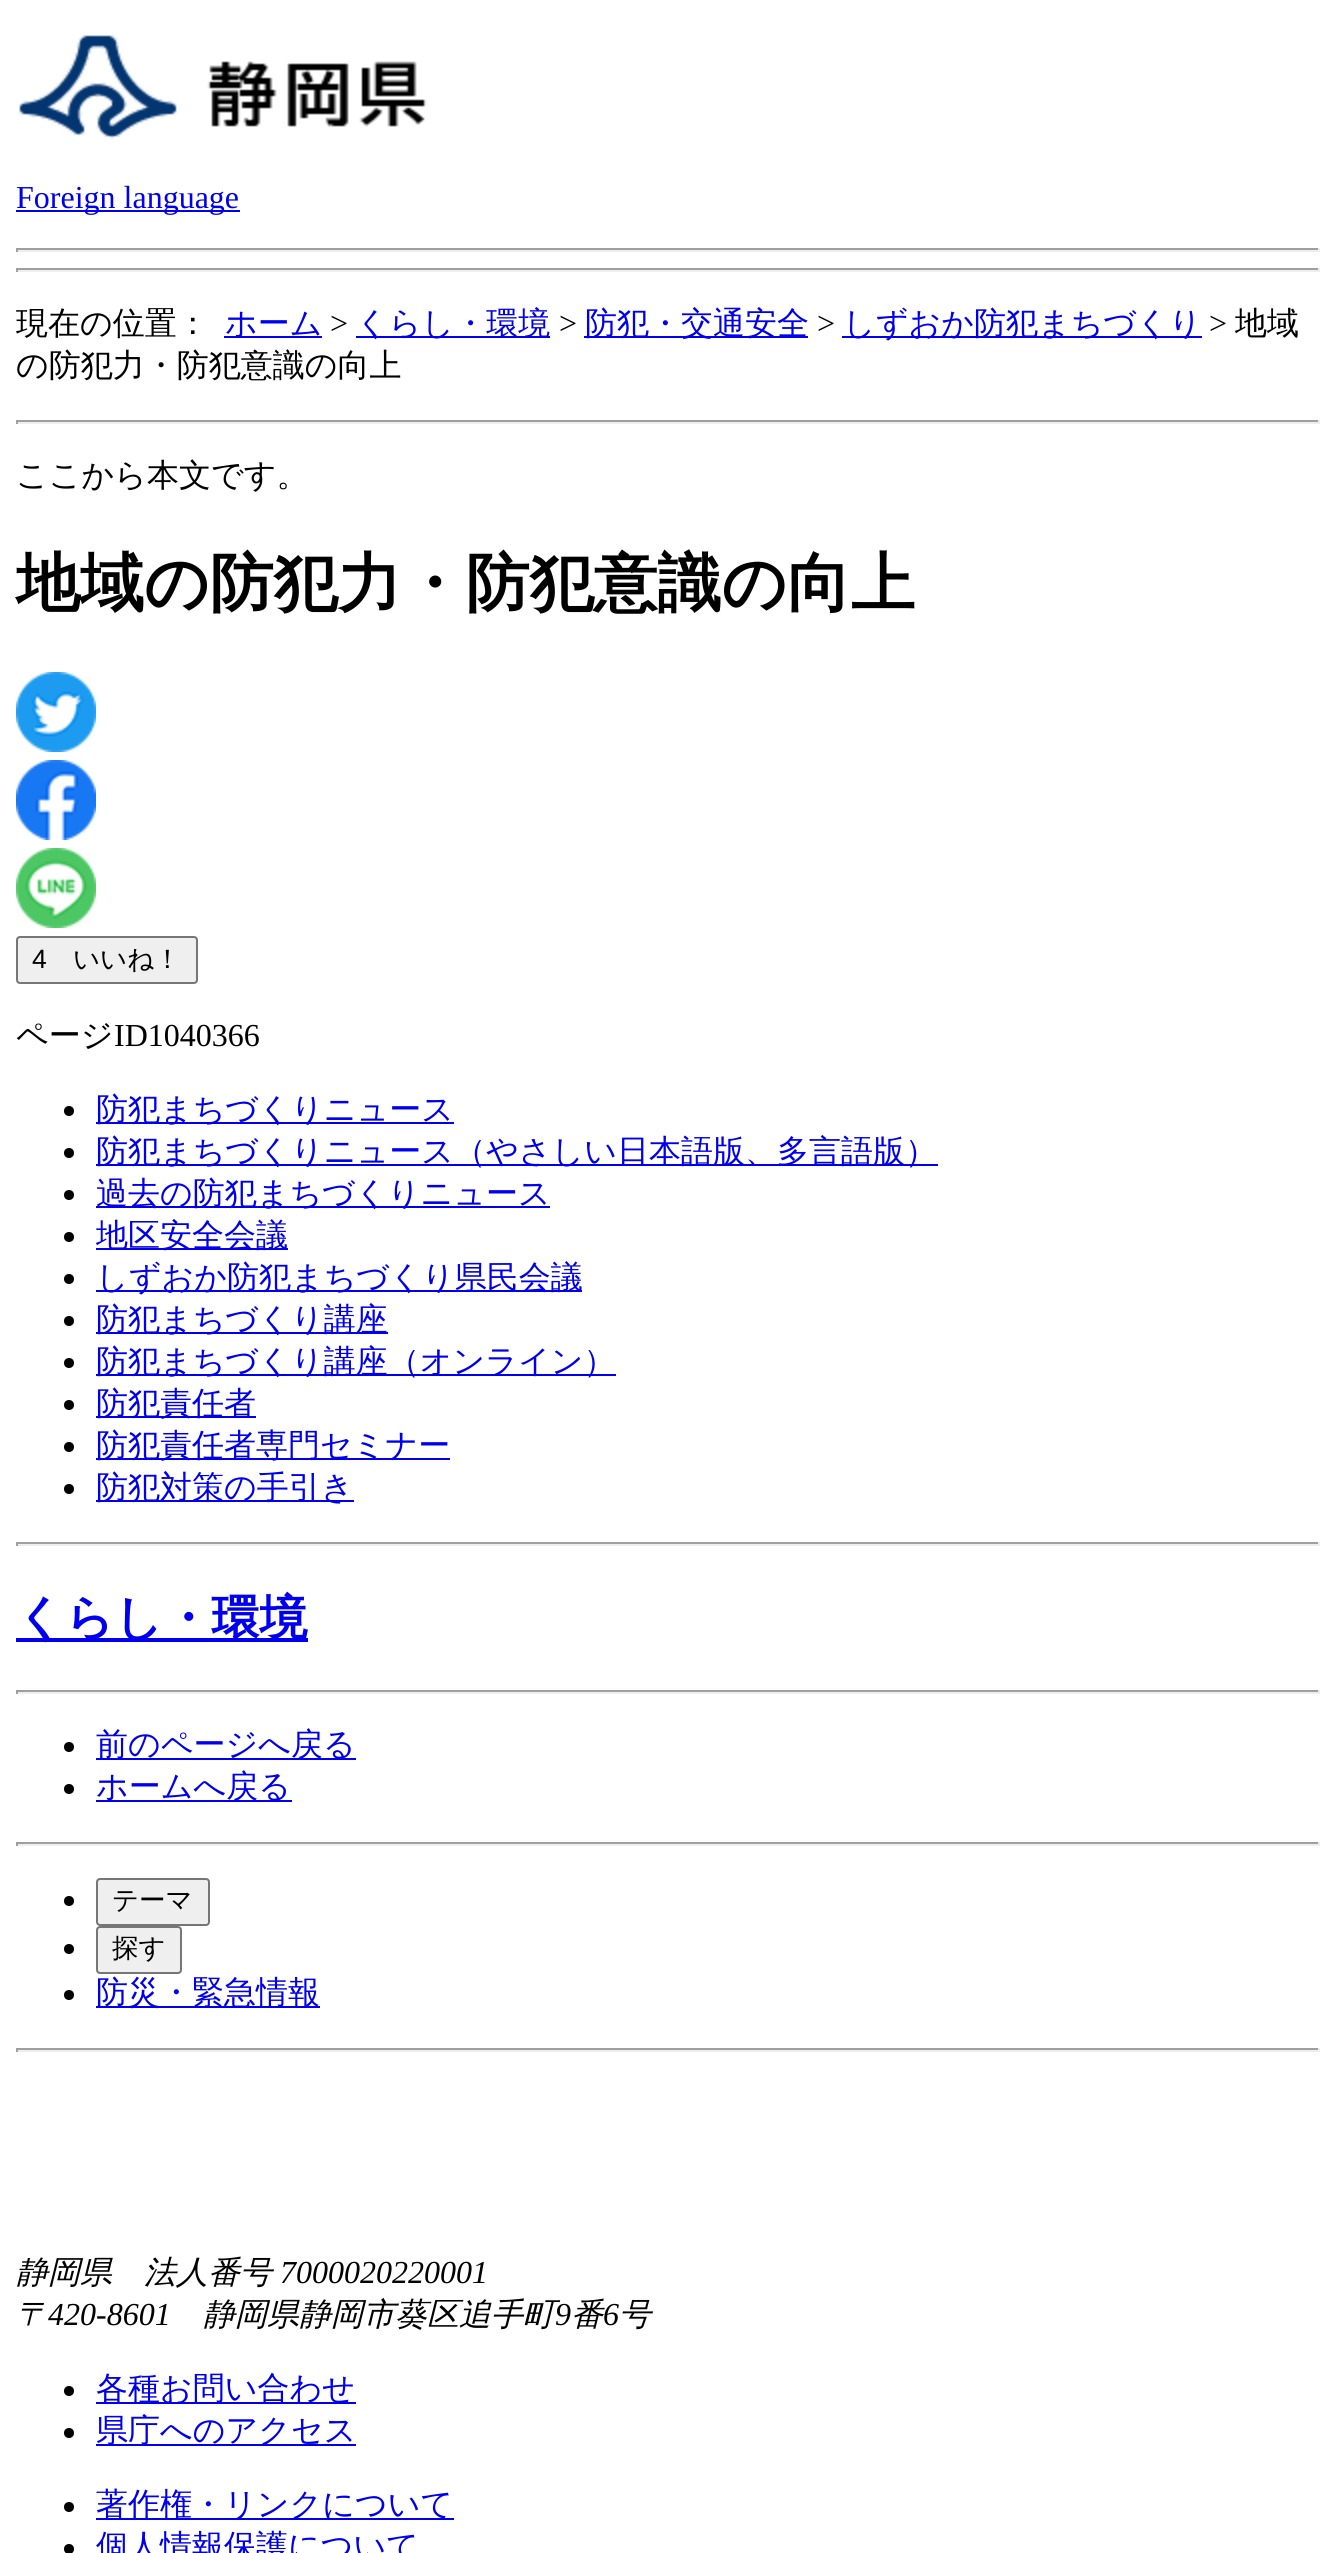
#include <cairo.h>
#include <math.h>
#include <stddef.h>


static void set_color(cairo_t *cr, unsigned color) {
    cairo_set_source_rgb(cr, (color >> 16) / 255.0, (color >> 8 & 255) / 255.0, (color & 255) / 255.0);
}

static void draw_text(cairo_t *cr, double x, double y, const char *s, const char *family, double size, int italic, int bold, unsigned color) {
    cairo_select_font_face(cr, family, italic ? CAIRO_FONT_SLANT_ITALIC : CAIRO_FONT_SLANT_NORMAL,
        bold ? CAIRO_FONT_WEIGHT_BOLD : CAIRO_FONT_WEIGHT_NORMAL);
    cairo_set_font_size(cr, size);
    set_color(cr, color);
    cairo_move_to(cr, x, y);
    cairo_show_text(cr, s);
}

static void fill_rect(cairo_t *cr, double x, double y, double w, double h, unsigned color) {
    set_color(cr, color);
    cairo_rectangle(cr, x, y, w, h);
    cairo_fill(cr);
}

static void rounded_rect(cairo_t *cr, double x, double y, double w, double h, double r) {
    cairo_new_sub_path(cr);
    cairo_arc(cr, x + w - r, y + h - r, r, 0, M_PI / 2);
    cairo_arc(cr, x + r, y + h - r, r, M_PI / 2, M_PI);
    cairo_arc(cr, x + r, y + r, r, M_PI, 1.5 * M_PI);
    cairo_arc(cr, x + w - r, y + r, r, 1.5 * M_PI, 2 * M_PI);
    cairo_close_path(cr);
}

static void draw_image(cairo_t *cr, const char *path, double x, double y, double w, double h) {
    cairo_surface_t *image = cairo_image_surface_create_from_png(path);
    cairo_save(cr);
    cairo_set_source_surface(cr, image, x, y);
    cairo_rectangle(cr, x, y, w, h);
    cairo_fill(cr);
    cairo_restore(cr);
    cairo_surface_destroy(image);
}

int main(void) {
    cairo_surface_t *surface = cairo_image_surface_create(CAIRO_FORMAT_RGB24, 1335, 2553);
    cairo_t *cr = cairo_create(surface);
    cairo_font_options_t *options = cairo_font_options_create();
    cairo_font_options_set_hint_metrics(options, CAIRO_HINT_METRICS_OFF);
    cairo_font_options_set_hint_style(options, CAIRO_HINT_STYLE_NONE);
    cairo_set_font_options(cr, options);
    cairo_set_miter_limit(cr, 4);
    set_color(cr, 0xFFFFFF);
    cairo_paint(cr);
    draw_image(cr, "assets/img1.png", 18, 34, 409, 105);
    fill_rect(cr, 16, 210, 224, 2, 0x0000EE);
    draw_text(cr, 16, 208, "Foreign language", "Liberation Serif", 32, 0, 0, 0x0000EE);
    fill_rect(cr, 16, 248, 1304, 2, 0x9F9F9F);
    fill_rect(cr, 1318, 248, 2, 4, 0xEEEEEE);
    fill_rect(cr, 16, 250, 1304, 2, 0xEEEEEE);
    fill_rect(cr, 16, 248, 2, 4, 0x9F9F9F);
    fill_rect(cr, 16, 268, 1304, 2, 0x9F9F9F);
    fill_rect(cr, 1318, 268, 2, 4, 0xEEEEEE);
    fill_rect(cr, 16, 270, 1304, 2, 0xEEEEEE);
    fill_rect(cr, 16, 268, 2, 4, 0x9F9F9F);
    draw_text(cr, 16, 334, "現在の位置：", "WenQuanYi Zen Hei Medium", 32, 0, 0, 0x000000);
    fill_rect(cr, 224, 336, 98, 2, 0x0000EE);
    draw_text(cr, 225, 334, "ホーム", "WenQuanYi Zen Hei Medium", 32, 0, 0, 0x0000EE);
    draw_text(cr, 330, 334, ">", "Liberation Serif", 32, 0, 0, 0x000000);
    fill_rect(cr, 356, 336, 194, 2, 0x0000EE);
    draw_text(cr, 356, 334, "くらし・環境", "WenQuanYi Zen Hei Medium", 32, 0, 0, 0x0000EE);
    draw_text(cr, 559, 334, ">", "Liberation Serif", 32, 0, 0, 0x000000);
    fill_rect(cr, 584, 336, 224, 2, 0x0000EE);
    draw_text(cr, 585, 334, "防犯・交通安全", "WenQuanYi Zen Hei Medium", 32, 0, 0, 0x0000EE);
    draw_text(cr, 817, 334, ">", "Liberation Serif", 32, 0, 0, 0x000000);
    fill_rect(cr, 842, 336, 360, 2, 0x0000EE);
    draw_text(cr, 843, 334, "しずおか防犯まちづくり", "WenQuanYi Zen Hei Medium", 32, 0, 0, 0x0000EE);
    draw_text(cr, 1209, 334, ">", "Liberation Serif", 32, 0, 0, 0x000000);
    draw_text(cr, 1235, 334, "地域", "WenQuanYi Zen Hei Medium", 32, 0, 0, 0x000000);
    draw_text(cr, 16, 376, "の防犯力・防犯意識の向上", "WenQuanYi Zen Hei Medium", 32, 0, 0, 0x000000);
    fill_rect(cr, 16, 420, 1304, 2, 0x9F9F9F);
    fill_rect(cr, 1318, 420, 2, 4, 0xEEEEEE);
    fill_rect(cr, 16, 422, 1304, 2, 0xEEEEEE);
    fill_rect(cr, 16, 420, 2, 4, 0x9F9F9F);
    draw_text(cr, 16, 486, "ここから本文です。", "WenQuanYi Zen Hei Medium", 32, 0, 0, 0x000000);
    draw_text(cr, 16, 605, "地域の防犯力・防犯意識の向上", "WenQuanYi Zen Hei", 64, 0, 1, 0x000000);
    draw_image(cr, "assets/img2.png", 16, 672, 80, 80);
    draw_image(cr, "assets/img3.png", 16, 760, 80, 80);
    draw_image(cr, "assets/img4.png", 16, 848, 80, 80);
    set_color(cr, 0xEFEFEF);
    rounded_rect(cr, 17, 937, 180, 46, 3);
    cairo_fill_preserve(cr);
    set_color(cr, 0x767676);
    cairo_stroke(cr);
    draw_text(cr, 32, 968, "4", "Liberation Sans", 26.5, 0, 0, 0x000000);
    draw_text(cr, 73, 968, "いいね！", "WenQuanYi Zen Hei Medium", 26.5, 0, 0, 0x000000);
    draw_text(cr, 16, 1046, "ページ", "WenQuanYi Zen Hei Medium", 32, 0, 0, 0x000000);
    draw_text(cr, 114, 1046, "ID1040366", "Liberation Serif", 32, 0, 0, 0x000000);
    cairo_new_path(cr);
    cairo_arc(cr, 69, 1111, 5, 0, 2 * M_PI);
    cairo_fill(cr);
    fill_rect(cr, 96, 1122, 358, 2, 0x0000EE);
    draw_text(cr, 96, 1120, "防犯まちづくりニュース", "WenQuanYi Zen Hei Medium", 32, 0, 0, 0x0000EE);
    set_color(cr, 0x000000);
    cairo_new_path(cr);
    cairo_arc(cr, 69, 1153, 5, 0, 2 * M_PI);
    cairo_fill(cr);
    fill_rect(cr, 96, 1164, 842, 2, 0x0000EE);
    draw_text(cr, 96, 1162, "防犯まちづくりニュース（やさしい日本語版、多言語版）", "WenQuanYi Zen Hei Medium", 32, 0, 0, 0x0000EE);
    set_color(cr, 0x000000);
    cairo_new_path(cr);
    cairo_arc(cr, 69, 1195, 5, 0, 2 * M_PI);
    cairo_fill(cr);
    fill_rect(cr, 96, 1206, 454, 2, 0x0000EE);
    draw_text(cr, 96, 1204, "過去の防犯まちづくりニュース", "WenQuanYi Zen Hei Medium", 32, 0, 0, 0x0000EE);
    set_color(cr, 0x000000);
    cairo_new_path(cr);
    cairo_arc(cr, 69, 1237, 5, 0, 2 * M_PI);
    cairo_fill(cr);
    fill_rect(cr, 96, 1248, 192, 2, 0x0000EE);
    draw_text(cr, 96, 1246, "地区安全会議", "WenQuanYi Zen Hei Medium", 32, 0, 0, 0x0000EE);
    set_color(cr, 0x000000);
    cairo_new_path(cr);
    cairo_arc(cr, 69, 1279, 5, 0, 2 * M_PI);
    cairo_fill(cr);
    fill_rect(cr, 96, 1290, 486, 2, 0x0000EE);
    draw_text(cr, 96, 1288, "しずおか防犯まちづくり県民会議", "WenQuanYi Zen Hei Medium", 32, 0, 0, 0x0000EE);
    set_color(cr, 0x000000);
    cairo_new_path(cr);
    cairo_arc(cr, 69, 1321, 5, 0, 2 * M_PI);
    cairo_fill(cr);
    fill_rect(cr, 96, 1332, 292, 2, 0x0000EE);
    draw_text(cr, 96, 1330, "防犯まちづくり講座", "WenQuanYi Zen Hei Medium", 32, 0, 0, 0x0000EE);
    set_color(cr, 0x000000);
    cairo_new_path(cr);
    cairo_arc(cr, 69, 1363, 5, 0, 2 * M_PI);
    cairo_fill(cr);
    fill_rect(cr, 96, 1374, 520, 2, 0x0000EE);
    draw_text(cr, 96, 1372, "防犯まちづくり講座（オンライン）", "WenQuanYi Zen Hei Medium", 32, 0, 0, 0x0000EE);
    set_color(cr, 0x000000);
    cairo_new_path(cr);
    cairo_arc(cr, 69, 1405, 5, 0, 2 * M_PI);
    cairo_fill(cr);
    fill_rect(cr, 96, 1416, 160, 2, 0x0000EE);
    draw_text(cr, 96, 1414, "防犯責任者", "WenQuanYi Zen Hei Medium", 32, 0, 0, 0x0000EE);
    set_color(cr, 0x000000);
    cairo_new_path(cr);
    cairo_arc(cr, 69, 1447, 5, 0, 2 * M_PI);
    cairo_fill(cr);
    fill_rect(cr, 96, 1458, 354, 2, 0x0000EE);
    draw_text(cr, 96, 1456, "防犯責任者専門セミナー", "WenQuanYi Zen Hei Medium", 32, 0, 0, 0x0000EE);
    set_color(cr, 0x000000);
    cairo_new_path(cr);
    cairo_arc(cr, 69, 1489, 5, 0, 2 * M_PI);
    cairo_fill(cr);
    fill_rect(cr, 96, 1500, 258, 2, 0x0000EE);
    draw_text(cr, 96, 1498, "防犯対策の手引き", "WenQuanYi Zen Hei Medium", 32, 0, 0, 0x0000EE);
    fill_rect(cr, 16, 1542, 1304, 2, 0x9F9F9F);
    fill_rect(cr, 1318, 1542, 2, 4, 0xEEEEEE);
    fill_rect(cr, 16, 1544, 1304, 2, 0xEEEEEE);
    fill_rect(cr, 16, 1542, 2, 4, 0x9F9F9F);
    fill_rect(cr, 16, 1638, 292, 4, 0x0000EE);
    draw_text(cr, 16, 1634, "くらし・環境", "WenQuanYi Zen Hei", 48, 0, 1, 0x0000EE);
    fill_rect(cr, 16, 1690, 1304, 2, 0x9F9F9F);
    fill_rect(cr, 1318, 1690, 2, 4, 0xEEEEEE);
    fill_rect(cr, 16, 1692, 1304, 2, 0xEEEEEE);
    fill_rect(cr, 16, 1690, 2, 4, 0x9F9F9F);
    set_color(cr, 0x000000);
    cairo_new_path(cr);
    cairo_arc(cr, 69, 1747, 5, 0, 2 * M_PI);
    cairo_fill(cr);
    fill_rect(cr, 96, 1758, 260, 2, 0x0000EE);
    draw_text(cr, 96, 1755, "前のページへ戻る", "WenQuanYi Zen Hei Medium", 32, 0, 0, 0x0000EE);
    set_color(cr, 0x000000);
    cairo_new_path(cr);
    cairo_arc(cr, 69, 1789, 5, 0, 2 * M_PI);
    cairo_fill(cr);
    fill_rect(cr, 96, 1800, 196, 2, 0x0000EE);
    draw_text(cr, 96, 1797, "ホームへ戻る", "WenQuanYi Zen Hei Medium", 32, 0, 0, 0x0000EE);
    fill_rect(cr, 16, 1842, 1304, 2, 0x9F9F9F);
    fill_rect(cr, 1318, 1842, 2, 4, 0xEEEEEE);
    fill_rect(cr, 16, 1844, 1304, 2, 0xEEEEEE);
    fill_rect(cr, 16, 1842, 2, 4, 0x9F9F9F);
    set_color(cr, 0x000000);
    cairo_new_path(cr);
    cairo_arc(cr, 69, 1901, 5, 0, 2 * M_PI);
    cairo_fill(cr);
    set_color(cr, 0xEFEFEF);
    rounded_rect(cr, 97, 1879, 112, 46, 3);
    cairo_fill_preserve(cr);
    set_color(cr, 0x767676);
    cairo_stroke(cr);
    draw_text(cr, 112, 1909, "テーマ", "WenQuanYi Zen Hei Medium", 26.5, 0, 0, 0x000000);
    cairo_new_path(cr);
    cairo_arc(cr, 69, 1949, 5, 0, 2 * M_PI);
    cairo_fill(cr);
    set_color(cr, 0xEFEFEF);
    rounded_rect(cr, 97, 1927, 84, 46, 3);
    cairo_fill_preserve(cr);
    set_color(cr, 0x767676);
    cairo_stroke(cr);
    draw_text(cr, 112, 1957, "探す", "WenQuanYi Zen Hei Medium", 26.5, 0, 0, 0x000000);
    cairo_new_path(cr);
    cairo_arc(cr, 69, 1995, 5, 0, 2 * M_PI);
    cairo_fill(cr);
    fill_rect(cr, 96, 2006, 224, 2, 0x0000EE);
    draw_text(cr, 96, 2003, "防災・緊急情報", "WenQuanYi Zen Hei Medium", 32, 0, 0, 0x0000EE);
    fill_rect(cr, 16, 2048, 1304, 2, 0x9F9F9F);
    fill_rect(cr, 1318, 2048, 2, 4, 0xEEEEEE);
    fill_rect(cr, 16, 2050, 1304, 2, 0xEEEEEE);
    fill_rect(cr, 16, 2048, 2, 4, 0x9F9F9F);
    draw_text(cr, 16, 2283, "静岡県　法人番号", "WenQuanYi Zen Hei Medium", 32, 1, 0, 0x000000);
    draw_text(cr, 280, 2283, "7000020220001", "Liberation Serif", 32, 1, 0, 0x000000);
    draw_text(cr, 16, 2325, "〒", "WenQuanYi Zen Hei Medium", 32, 1, 0, 0x000000);
    draw_text(cr, 48, 2325, "420-8601", "Liberation Serif", 32, 1, 0, 0x000000);
    draw_text(cr, 203, 2325, "静岡県静岡市葵区追手町", "WenQuanYi Zen Hei Medium", 32, 1, 0, 0x000000);
    draw_text(cr, 555, 2325, "9", "Liberation Serif", 32, 1, 0, 0x000000);
    draw_text(cr, 571, 2325, "番", "WenQuanYi Zen Hei Medium", 32, 1, 0, 0x000000);
    draw_text(cr, 603, 2325, "6", "Liberation Serif", 32, 1, 0, 0x000000);
    draw_text(cr, 619, 2325, "号", "WenQuanYi Zen Hei Medium", 32, 1, 0, 0x000000);
    cairo_new_path(cr);
    cairo_arc(cr, 69, 2391, 5, 0, 2 * M_PI);
    cairo_fill(cr);
    fill_rect(cr, 96, 2402, 260, 2, 0x0000EE);
    draw_text(cr, 96, 2399, "各種お問い合わせ", "WenQuanYi Zen Hei Medium", 32, 0, 0, 0x0000EE);
    set_color(cr, 0x000000);
    cairo_new_path(cr);
    cairo_arc(cr, 69, 2433, 5, 0, 2 * M_PI);
    cairo_fill(cr);
    fill_rect(cr, 96, 2444, 260, 2, 0x0000EE);
    draw_text(cr, 96, 2441, "県庁へのアクセス", "WenQuanYi Zen Hei Medium", 32, 0, 0, 0x0000EE);
    set_color(cr, 0x000000);
    cairo_new_path(cr);
    cairo_arc(cr, 69, 2507, 5, 0, 2 * M_PI);
    cairo_fill(cr);
    fill_rect(cr, 96, 2518, 358, 2, 0x0000EE);
    draw_text(cr, 96, 2515, "著作権・リンクについて", "WenQuanYi Zen Hei Medium", 32, 0, 0, 0x0000EE);
    set_color(cr, 0x000000);
    cairo_new_path(cr);
    cairo_arc(cr, 69, 2549, 5, 0, 2 * M_PI);
    cairo_fill(cr);
    draw_text(cr, 96, 2557, "個人情報保護について", "WenQuanYi Zen Hei Medium", 32, 0, 0, 0x0000EE);
    cairo_surface_write_to_png(surface, "output.png");
    cairo_font_options_destroy(options);
    cairo_destroy(cr);
    cairo_surface_destroy(surface);
    return 0;
}
